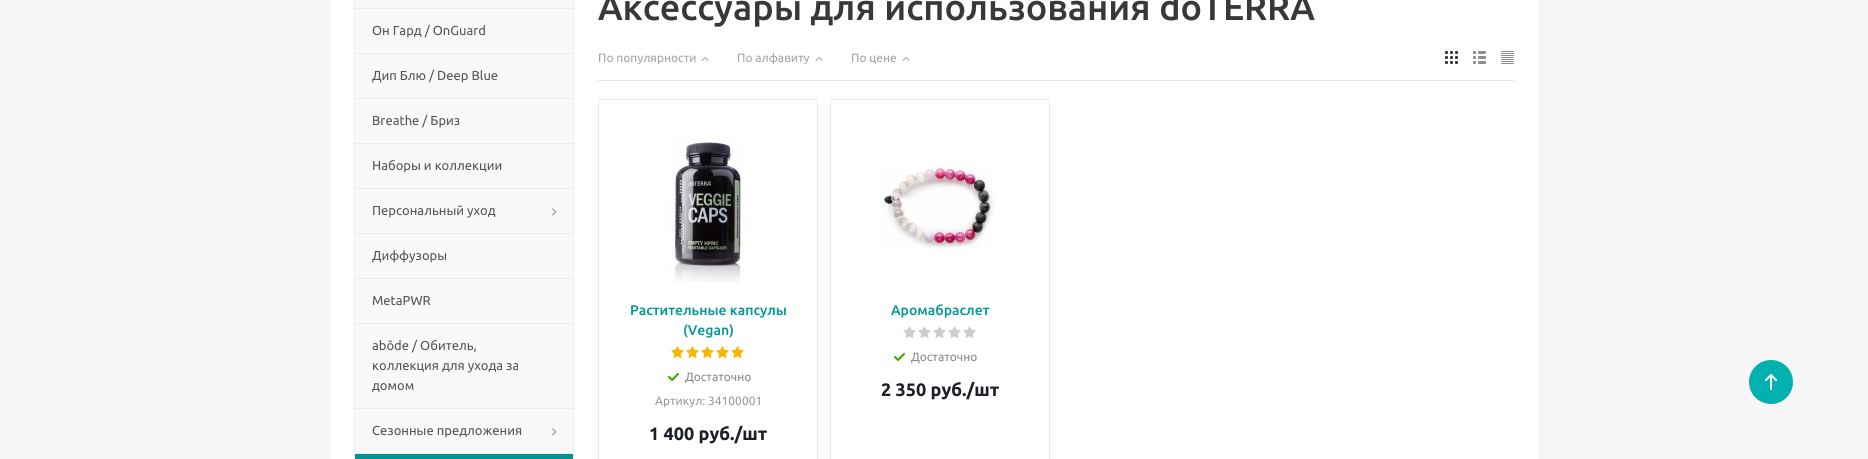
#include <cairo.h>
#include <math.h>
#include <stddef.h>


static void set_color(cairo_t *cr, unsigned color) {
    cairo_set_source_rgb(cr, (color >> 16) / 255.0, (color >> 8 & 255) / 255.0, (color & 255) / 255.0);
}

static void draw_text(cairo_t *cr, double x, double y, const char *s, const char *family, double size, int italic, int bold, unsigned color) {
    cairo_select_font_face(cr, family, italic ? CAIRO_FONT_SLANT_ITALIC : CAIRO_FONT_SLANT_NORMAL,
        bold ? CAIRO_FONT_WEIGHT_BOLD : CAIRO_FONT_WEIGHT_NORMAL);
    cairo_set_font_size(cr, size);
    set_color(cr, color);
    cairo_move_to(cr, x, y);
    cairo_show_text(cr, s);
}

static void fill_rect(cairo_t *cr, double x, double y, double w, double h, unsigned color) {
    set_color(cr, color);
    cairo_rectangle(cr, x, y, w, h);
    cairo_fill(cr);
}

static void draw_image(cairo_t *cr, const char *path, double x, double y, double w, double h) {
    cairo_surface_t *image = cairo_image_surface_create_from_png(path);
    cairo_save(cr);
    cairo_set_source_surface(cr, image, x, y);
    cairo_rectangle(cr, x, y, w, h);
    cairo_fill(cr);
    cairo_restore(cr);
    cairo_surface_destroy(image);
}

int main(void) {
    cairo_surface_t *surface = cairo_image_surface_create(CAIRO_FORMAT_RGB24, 1868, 459);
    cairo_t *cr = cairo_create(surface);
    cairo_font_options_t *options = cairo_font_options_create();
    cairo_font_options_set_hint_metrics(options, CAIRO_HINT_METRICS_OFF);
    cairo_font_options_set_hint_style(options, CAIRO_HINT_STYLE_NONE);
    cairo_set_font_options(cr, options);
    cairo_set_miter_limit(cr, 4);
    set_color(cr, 0xF6F6F7);
    cairo_paint(cr);
    fill_rect(cr, 330, 0, 1208, 459, 0xFFFFFF);
    fill_rect(cr, 355, 0, 218, 8, 0xF9F9F9);
    fill_rect(cr, 573, 0, 1, 8, 0xEAEBEC);
    fill_rect(cr, 354, 0, 1, 8, 0xEAEBEC);
    fill_rect(cr, 355, 9, 218, 44, 0xF9F9F9);
    fill_rect(cr, 354, 8, 220, 1, 0xEAEBEC);
    fill_rect(cr, 573, 8, 1, 45, 0xEAEBEC);
    fill_rect(cr, 354, 8, 1, 45, 0xEAEBEC);
    draw_text(cr, 372, 35, "Он Гард / OnGuard", "Ubuntu", 13, 0, 0, 0x555555);
    fill_rect(cr, 355, 54, 218, 44, 0xF9F9F9);
    fill_rect(cr, 354, 53, 220, 1, 0xEAEBEC);
    fill_rect(cr, 573, 53, 1, 45, 0xEAEBEC);
    fill_rect(cr, 354, 53, 1, 45, 0xEAEBEC);
    draw_text(cr, 372, 80, "Дип Блю / Deep Blue", "Ubuntu", 13, 0, 0, 0x555555);
    fill_rect(cr, 355, 99, 218, 44, 0xF9F9F9);
    fill_rect(cr, 354, 98, 220, 1, 0xEAEBEC);
    fill_rect(cr, 573, 98, 1, 45, 0xEAEBEC);
    fill_rect(cr, 354, 98, 1, 45, 0xEAEBEC);
    draw_text(cr, 372, 125, "Breathe / Бриз", "Ubuntu", 13, 0, 0, 0x555555);
    fill_rect(cr, 355, 144, 218, 44, 0xF9F9F9);
    fill_rect(cr, 354, 143, 220, 1, 0xEAEBEC);
    fill_rect(cr, 573, 143, 1, 45, 0xEAEBEC);
    fill_rect(cr, 354, 143, 1, 45, 0xEAEBEC);
    draw_text(cr, 372, 170, "Наборы и коллекции", "Ubuntu", 13, 0, 0, 0x555555);
    fill_rect(cr, 355, 189, 218, 44, 0xF9F9F9);
    fill_rect(cr, 354, 188, 220, 1, 0xEAEBEC);
    fill_rect(cr, 573, 188, 1, 45, 0xEAEBEC);
    fill_rect(cr, 354, 188, 1, 45, 0xEAEBEC);
    draw_text(cr, 372, 215, "Персональный уход", "Ubuntu", 13, 0, 0, 0x555555);
    draw_image(cr, "assets/img1.png", 552, 208, 5, 8);
    fill_rect(cr, 355, 234, 218, 44, 0xF9F9F9);
    fill_rect(cr, 354, 233, 220, 1, 0xEAEBEC);
    fill_rect(cr, 573, 233, 1, 45, 0xEAEBEC);
    fill_rect(cr, 354, 233, 1, 45, 0xEAEBEC);
    draw_text(cr, 372, 260, "Диффузоры", "Ubuntu", 13, 0, 0, 0x555555);
    fill_rect(cr, 355, 279, 218, 44, 0xF9F9F9);
    fill_rect(cr, 354, 278, 220, 1, 0xEAEBEC);
    fill_rect(cr, 573, 278, 1, 45, 0xEAEBEC);
    fill_rect(cr, 354, 278, 1, 45, 0xEAEBEC);
    draw_text(cr, 372, 305, "MetaPWR", "Ubuntu", 13, 0, 0, 0x555555);
    fill_rect(cr, 355, 324, 218, 84, 0xF9F9F9);
    fill_rect(cr, 354, 323, 220, 1, 0xEAEBEC);
    fill_rect(cr, 573, 323, 1, 85, 0xEAEBEC);
    fill_rect(cr, 354, 323, 1, 85, 0xEAEBEC);
    draw_text(cr, 372, 350, "abōde / Обитель,", "Ubuntu", 13, 0, 0, 0x555555);
    draw_text(cr, 372, 370, "коллекция для ухода за", "Ubuntu", 13, 0, 0, 0x555555);
    draw_text(cr, 372, 390, "домом", "Ubuntu", 13, 0, 0, 0x555555);
    fill_rect(cr, 355, 409, 218, 44, 0xF9F9F9);
    fill_rect(cr, 354, 408, 220, 1, 0xEAEBEC);
    fill_rect(cr, 573, 408, 1, 45, 0xEAEBEC);
    fill_rect(cr, 354, 408, 1, 45, 0xEAEBEC);
    draw_text(cr, 372, 435, "Сезонные предложения", "Ubuntu", 13, 0, 0, 0x555555);
    draw_image(cr, "assets/img1.png", 552, 428, 5, 8);
    set_color(cr, 0x009392);
    cairo_rectangle(cr, 354.5, 453.5, 219, 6);
    cairo_fill_preserve(cr);
    set_color(cr, 0xEAEBEC);
    cairo_set_line_width(cr, 1);
    cairo_stroke(cr);
    draw_text(cr, 598, 20, "Аксессуары для использования doTERRA", "Ubuntu Medium", 36, 0, 0, 0x383838);
    fill_rect(cr, 598, 80, 916, 1, 0xE5E5E5);
    draw_text(cr, 598, 62, "По популярности", "Ubuntu", 12, 0, 0, 0xA5A3A3);
    draw_image(cr, "assets/img2.png", 701, 56, 8, 5);
    draw_text(cr, 737, 62, "По алфавиту", "Ubuntu", 12, 0, 0, 0xA5A3A3);
    draw_image(cr, "assets/img2.png", 815, 56, 8, 5);
    draw_text(cr, 851, 62, "По цене", "Ubuntu", 12, 0, 0, 0xA5A3A3);
    draw_image(cr, "assets/img2.png", 902, 56, 8, 5);
    draw_image(cr, "assets/img3.png", 1445, 51, 13, 13);
    draw_image(cr, "assets/img4.png", 1473, 51, 13, 13);
    draw_image(cr, "assets/img5.png", 1501, 51, 13, 13);
    cairo_rectangle(cr, 598.5, 99.5, 219, 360);
    set_color(cr, 0xEAEBEC);
    cairo_stroke(cr);
    draw_image(cr, "assets/img6.png", 668, 139, 73, 144);
    draw_text(cr, 630, 315, "Растительные капсулы", "Ubuntu Medium", 14, 0, 0, 0x009897);
    draw_text(cr, 683, 335, "(Vegan)", "Ubuntu Medium", 14, 0, 0, 0x009897);
    draw_image(cr, "assets/img7.png", 671, 346, 13, 13);
    draw_image(cr, "assets/img7.png", 686, 346, 13, 13);
    draw_image(cr, "assets/img7.png", 701, 346, 13, 13);
    draw_image(cr, "assets/img7.png", 716, 346, 13, 13);
    draw_image(cr, "assets/img7.png", 731, 346, 13, 13);
    draw_image(cr, "assets/img8.png", 668, 373, 11, 8);
    draw_text(cr, 685, 381, "Достаточно", "Ubuntu", 12, 0, 0, 0x888888);
    draw_text(cr, 655, 405, "Артикул: 34100001", "Ubuntu", 12, 0, 0, 0x999999);
    draw_text(cr, 649, 440, "1 400 руб./шт", "Ubuntu", 18, 0, 1, 0x1D2029);
    cairo_rectangle(cr, 830.5, 99.5, 219, 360);
    set_color(cr, 0xEAEBEC);
    cairo_stroke(cr);
    draw_image(cr, "assets/img9.png", 880, 165, 114, 84);
    draw_text(cr, 891, 315, "Аромабраслет", "Ubuntu Medium", 14, 0, 0, 0x009897);
    draw_image(cr, "assets/img10.png", 903, 326, 13, 12);
    draw_image(cr, "assets/img10.png", 918, 326, 13, 12);
    draw_image(cr, "assets/img10.png", 933, 326, 13, 12);
    draw_image(cr, "assets/img10.png", 948, 326, 13, 12);
    draw_image(cr, "assets/img10.png", 963, 326, 13, 12);
    draw_image(cr, "assets/img8.png", 894, 353, 11, 8);
    draw_text(cr, 911, 361, "Достаточно", "Ubuntu", 12, 0, 0, 0x888888);
    draw_text(cr, 881, 396, "2 350 руб./шт", "Ubuntu", 18, 0, 1, 0x1D2029);
    set_color(cr, 0x01B1AF);
    cairo_new_path(cr);
    cairo_arc(cr, 1771, 382, 22, 0, 2 * M_PI);
    cairo_fill(cr);
    cairo_new_path(cr);
    cairo_move_to(cr, 1771, 375);
    cairo_line_to(cr, 1771, 389);
    cairo_move_to(cr, 1766, 380);
    cairo_line_to(cr, 1771, 375);
    cairo_line_to(cr, 1776, 380);
    set_color(cr, 0xFFFFFF);
    cairo_set_line_width(cr, 2);
    cairo_set_line_cap(cr, CAIRO_LINE_CAP_ROUND);
    cairo_set_line_join(cr, CAIRO_LINE_JOIN_ROUND);
    cairo_stroke(cr);
    cairo_surface_write_to_png(surface, "output.png");
    cairo_font_options_destroy(options);
    cairo_destroy(cr);
    cairo_surface_destroy(surface);
    return 0;
}
